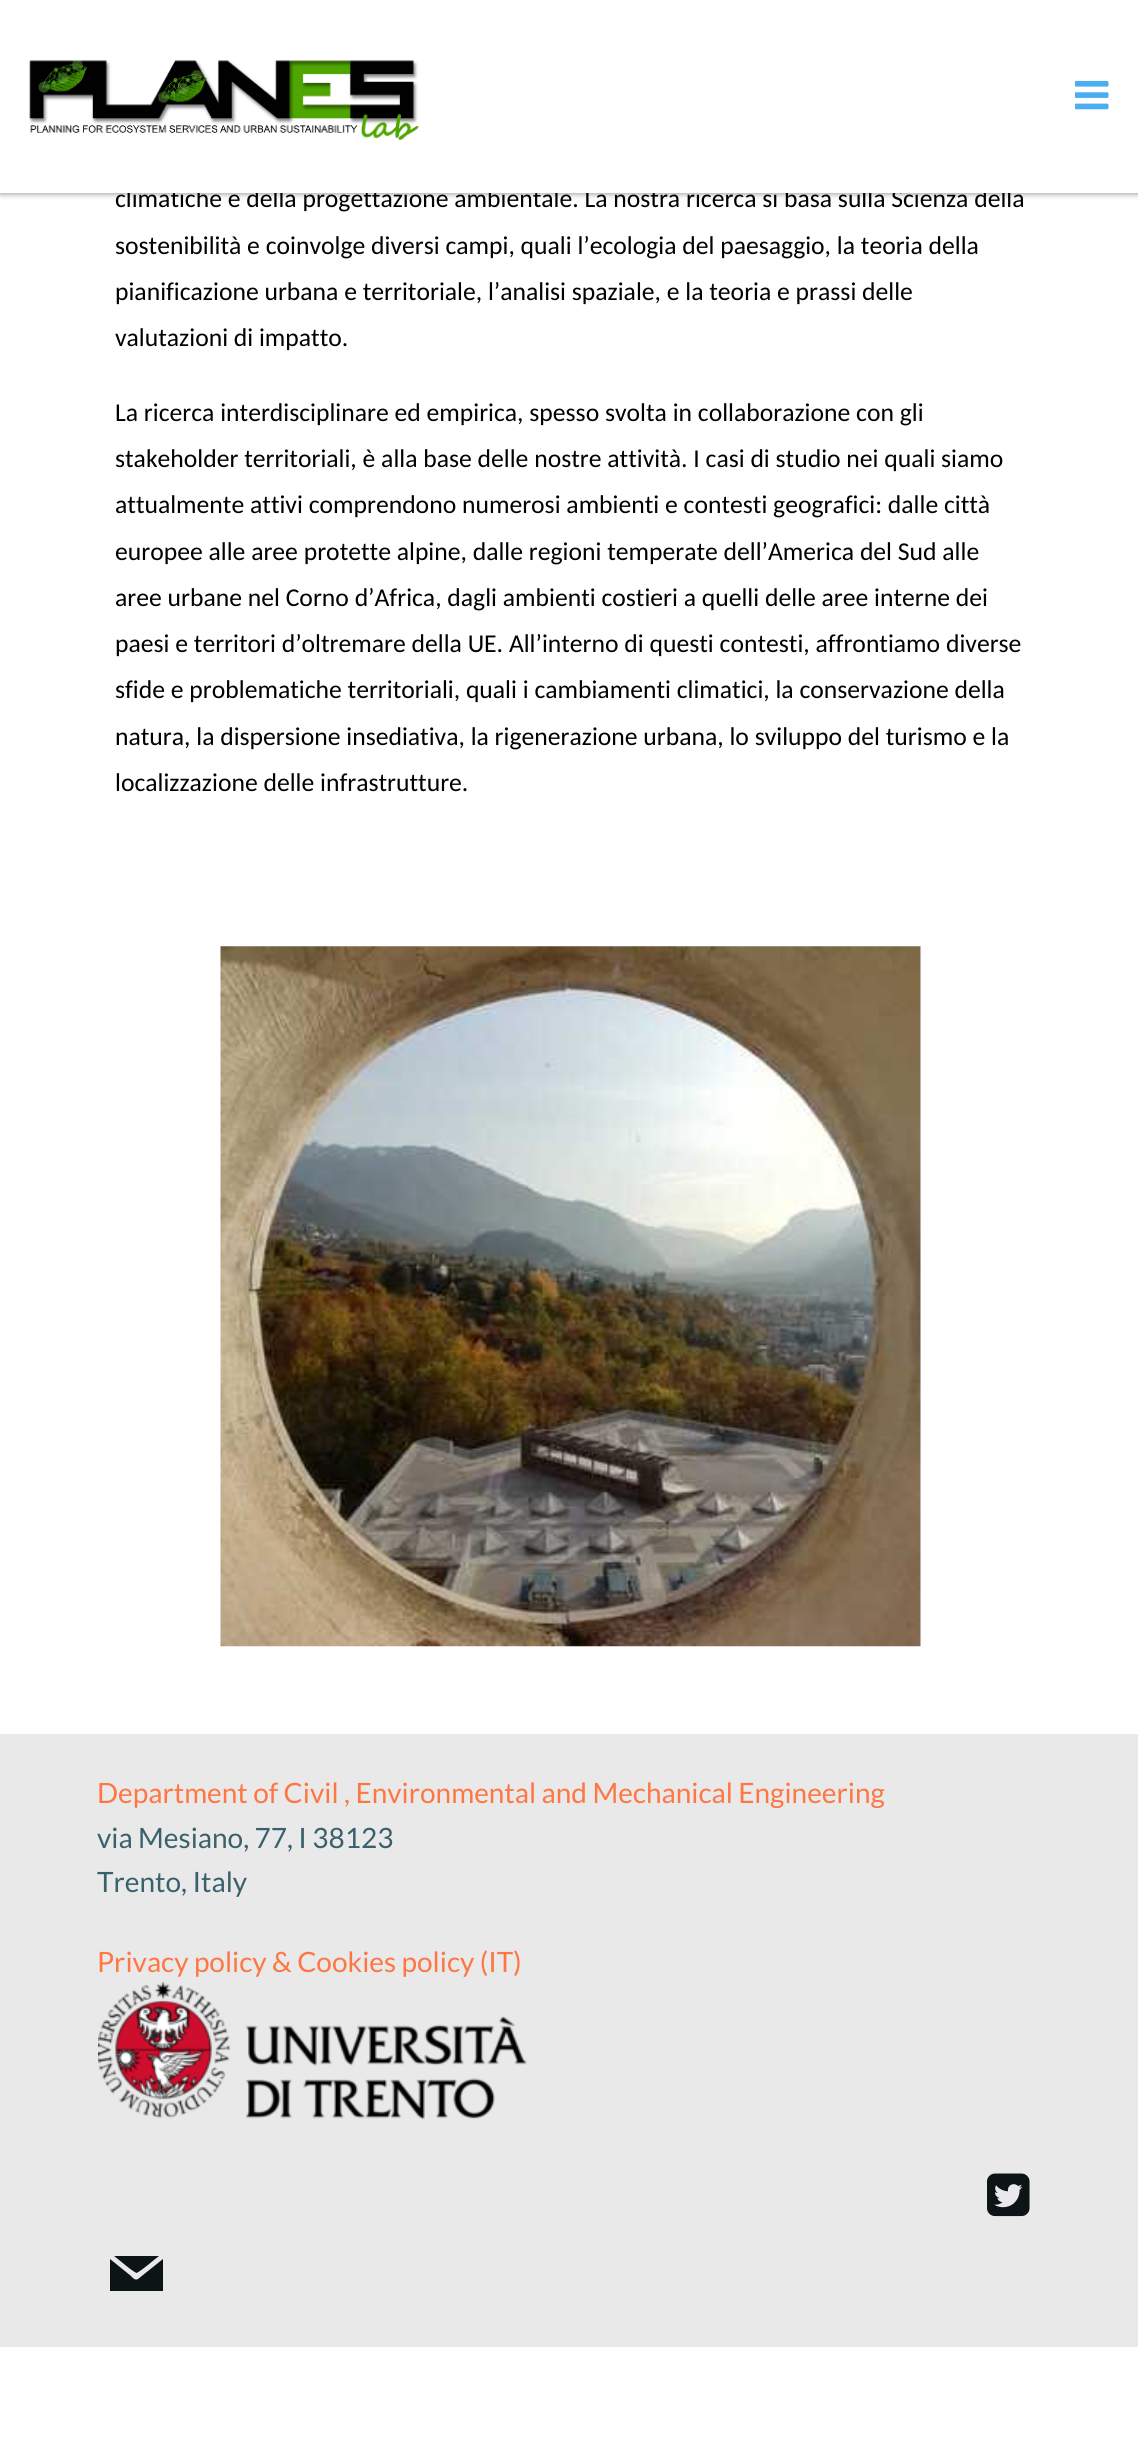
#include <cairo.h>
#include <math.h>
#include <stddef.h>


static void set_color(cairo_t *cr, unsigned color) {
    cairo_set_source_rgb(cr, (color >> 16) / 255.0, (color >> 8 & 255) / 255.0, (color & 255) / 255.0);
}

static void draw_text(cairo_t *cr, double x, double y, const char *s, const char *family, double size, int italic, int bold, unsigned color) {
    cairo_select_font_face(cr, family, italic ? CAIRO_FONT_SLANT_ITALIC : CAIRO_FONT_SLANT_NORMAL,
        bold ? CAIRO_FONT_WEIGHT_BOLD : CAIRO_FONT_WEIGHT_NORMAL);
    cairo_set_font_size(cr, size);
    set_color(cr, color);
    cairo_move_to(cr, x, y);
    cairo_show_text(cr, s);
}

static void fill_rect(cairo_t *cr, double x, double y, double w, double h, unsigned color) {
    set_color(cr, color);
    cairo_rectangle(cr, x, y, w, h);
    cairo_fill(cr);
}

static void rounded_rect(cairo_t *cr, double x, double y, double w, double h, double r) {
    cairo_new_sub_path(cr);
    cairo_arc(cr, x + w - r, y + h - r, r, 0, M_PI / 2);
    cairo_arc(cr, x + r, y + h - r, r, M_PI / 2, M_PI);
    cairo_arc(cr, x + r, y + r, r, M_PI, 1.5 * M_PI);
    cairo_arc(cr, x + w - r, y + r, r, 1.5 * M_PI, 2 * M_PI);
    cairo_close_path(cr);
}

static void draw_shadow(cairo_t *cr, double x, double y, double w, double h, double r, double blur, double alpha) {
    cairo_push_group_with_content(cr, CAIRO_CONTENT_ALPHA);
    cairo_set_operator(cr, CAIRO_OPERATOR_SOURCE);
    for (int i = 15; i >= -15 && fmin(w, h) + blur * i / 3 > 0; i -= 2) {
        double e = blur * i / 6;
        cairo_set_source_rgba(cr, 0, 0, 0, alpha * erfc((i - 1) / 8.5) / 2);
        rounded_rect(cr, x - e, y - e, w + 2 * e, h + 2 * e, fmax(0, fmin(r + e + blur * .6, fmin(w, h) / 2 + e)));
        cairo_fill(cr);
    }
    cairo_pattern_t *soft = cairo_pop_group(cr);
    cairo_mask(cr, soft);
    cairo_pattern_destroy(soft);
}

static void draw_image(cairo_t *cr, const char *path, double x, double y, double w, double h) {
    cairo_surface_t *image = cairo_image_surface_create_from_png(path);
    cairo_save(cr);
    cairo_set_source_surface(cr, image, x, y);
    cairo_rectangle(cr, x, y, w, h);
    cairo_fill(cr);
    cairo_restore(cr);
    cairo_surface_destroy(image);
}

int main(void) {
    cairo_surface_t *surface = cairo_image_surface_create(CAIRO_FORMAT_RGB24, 1138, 2453);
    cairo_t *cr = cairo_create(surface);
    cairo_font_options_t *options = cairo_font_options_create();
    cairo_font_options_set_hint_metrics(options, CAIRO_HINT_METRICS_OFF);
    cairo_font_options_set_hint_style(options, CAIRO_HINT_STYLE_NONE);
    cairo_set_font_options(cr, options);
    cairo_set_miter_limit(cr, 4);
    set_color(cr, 0xFFFFFF);
    cairo_paint(cr);
    set_color(cr, 0x000000);
    draw_shadow(cr, 0, 0, 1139, 193, 0, 3.5, 0.5);
    draw_text(cr, 115, 207, "climatiche e della progettazione ambientale. La nostra ricerca si basa sulla Scienza della", "Carlito", 25.65, 0, 0, 0x000000);
    fill_rect(cr, 0, 0, 1138, 193, 0xFFFFFF);
    draw_image(cr, "assets/img1.png", 29, 59, 390, 81);
    draw_image(cr, "assets/img2.png", 1075, 80, 34, 30);
    draw_text(cr, 115, 254, "sostenibilità e coinvolge diversi campi, quali l’ecologia del paesaggio, la teoria della", "Carlito", 25.65, 0, 0, 0x000000);
    draw_text(cr, 115, 300, "pianificazione urbana e territoriale, l’analisi spaziale, e la teoria e prassi delle", "Carlito", 25.65, 0, 0, 0x000000);
    draw_text(cr, 115, 346, "valutazioni di impatto.", "Carlito", 25.65, 0, 0, 0x000000);
    draw_text(cr, 115, 421, "La ricerca interdisciplinare ed empirica, spesso svolta in collaborazione con gli", "Carlito", 25.65, 0, 0, 0x000000);
    draw_text(cr, 115, 467, "stakeholder territoriali, è alla base delle nostre attività. I casi di studio nei quali siamo", "Carlito", 25.65, 0, 0, 0x000000);
    draw_text(cr, 115, 513, "attualmente attivi comprendono numerosi ambienti e contesti geografici: dalle città", "Carlito", 25.65, 0, 0, 0x000000);
    draw_text(cr, 115, 560, "europee alle aree protette alpine, dalle regioni temperate dell’America del Sud alle", "Carlito", 25.65, 0, 0, 0x000000);
    draw_text(cr, 115, 606, "aree urbane nel Corno d’Africa, dagli ambienti costieri a quelli delle aree interne dei", "Carlito", 25.65, 0, 0, 0x000000);
    draw_text(cr, 115, 652, "paesi e territori d’oltremare della UE. All’interno di questi contesti, affrontiamo diverse", "Carlito", 25.65, 0, 0, 0x000000);
    draw_text(cr, 115, 698, "sfide e problematiche territoriali, quali i cambiamenti climatici, la conservazione della", "Carlito", 25.65, 0, 0, 0x000000);
    draw_text(cr, 115, 745, "natura, la dispersione insediativa, la rigenerazione urbana, lo sviluppo del turismo e la", "Carlito", 25.65, 0, 0, 0x000000);
    draw_text(cr, 115, 791, "localizzazione delle infrastrutture.", "Carlito", 25.65, 0, 0, 0x000000);
    draw_image(cr, "assets/img3.png", 220, 946, 701, 701);
    fill_rect(cr, 0, 1734, 1138, 613, 0xE9E9E9);
    draw_text(cr, 97, 1803, "Department of Civil , Environmental and Mechanical Engineering", "Lato", 28, 0, 0, 0xFF7643);
    draw_text(cr, 97, 1848, "via Mesiano, 77, I 38123", "Lato", 28, 0, 0, 0x3A616B);
    draw_text(cr, 97, 1892, "Trento, Italy", "Lato", 28, 0, 0, 0x3A616B);
    draw_text(cr, 97, 1972, "Privacy policy & Cookies policy (IT)", "Lato", 28, 0, 0, 0xFF7643);
    draw_image(cr, "assets/img4.png", 98, 1982, 429, 138);
    draw_image(cr, "assets/img5.png", 987, 2173, 43, 44);
    set_color(cr, 0x0C1416);
    cairo_new_path(cr);
    cairo_move_to(cr, 138, 2279);
    cairo_curve_to(cr, 135, 2281, 132, 2277, 131, 2276);
    cairo_line_to(cr, 110, 2259);
    cairo_line_to(cr, 110, 2291);
    cairo_line_to(cr, 163, 2291);
    cairo_line_to(cr, 163, 2259);
    cairo_close_path(cr);
    cairo_move_to(cr, 136, 2273);
    cairo_curve_to(cr, 139, 2273, 156, 2258, 159, 2256);
    cairo_line_to(cr, 114, 2256);
    cairo_curve_to(cr, 117, 2258, 134, 2273, 137, 2273);
    cairo_close_path(cr);
    cairo_fill(cr);
    cairo_surface_write_to_png(surface, "output.png");
    cairo_font_options_destroy(options);
    cairo_destroy(cr);
    cairo_surface_destroy(surface);
    return 0;
}
